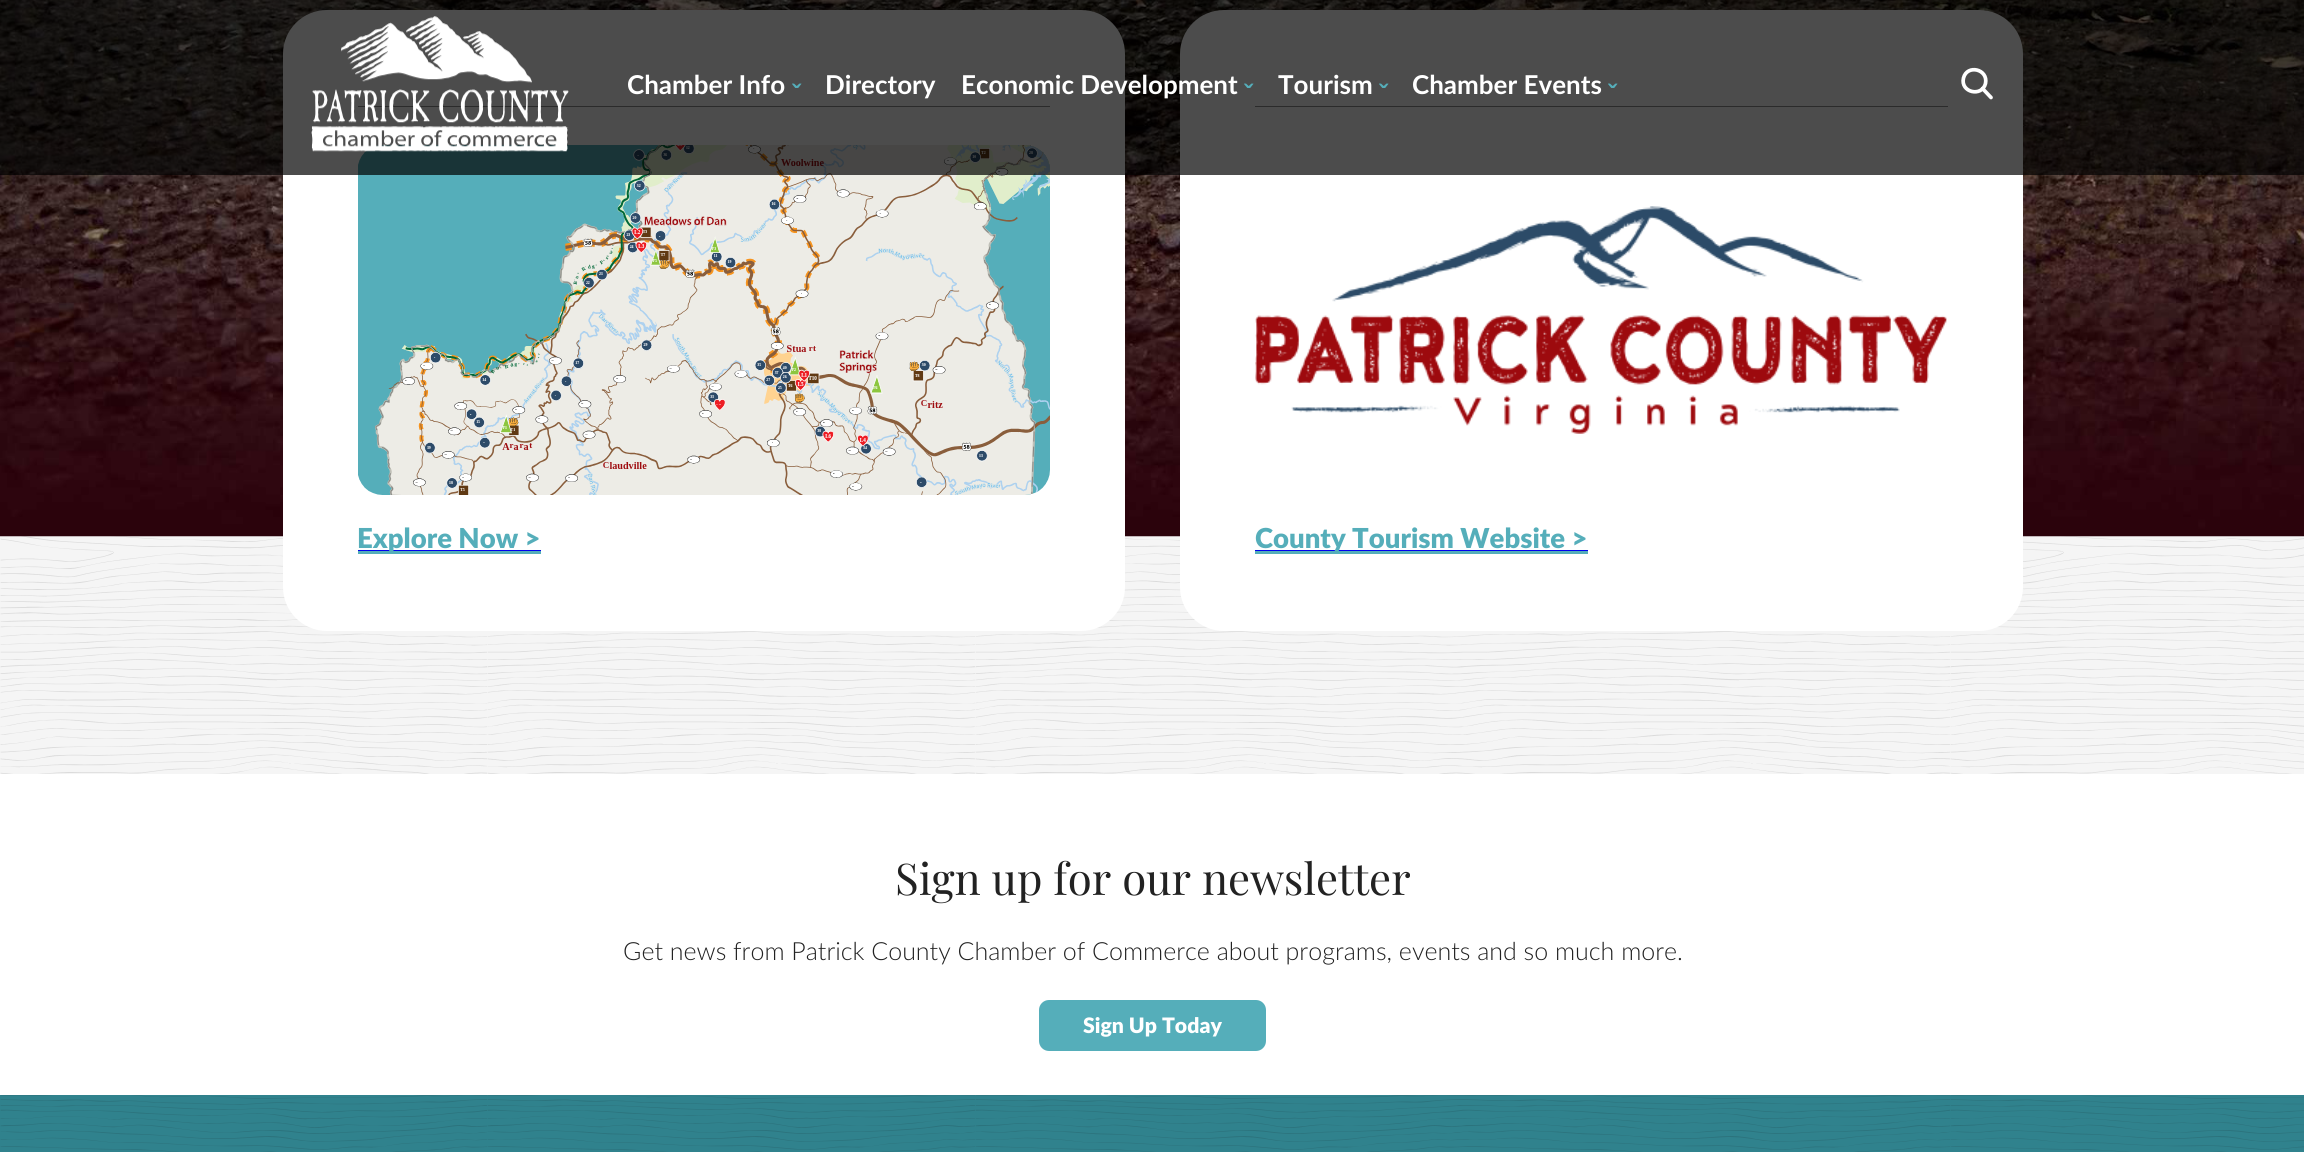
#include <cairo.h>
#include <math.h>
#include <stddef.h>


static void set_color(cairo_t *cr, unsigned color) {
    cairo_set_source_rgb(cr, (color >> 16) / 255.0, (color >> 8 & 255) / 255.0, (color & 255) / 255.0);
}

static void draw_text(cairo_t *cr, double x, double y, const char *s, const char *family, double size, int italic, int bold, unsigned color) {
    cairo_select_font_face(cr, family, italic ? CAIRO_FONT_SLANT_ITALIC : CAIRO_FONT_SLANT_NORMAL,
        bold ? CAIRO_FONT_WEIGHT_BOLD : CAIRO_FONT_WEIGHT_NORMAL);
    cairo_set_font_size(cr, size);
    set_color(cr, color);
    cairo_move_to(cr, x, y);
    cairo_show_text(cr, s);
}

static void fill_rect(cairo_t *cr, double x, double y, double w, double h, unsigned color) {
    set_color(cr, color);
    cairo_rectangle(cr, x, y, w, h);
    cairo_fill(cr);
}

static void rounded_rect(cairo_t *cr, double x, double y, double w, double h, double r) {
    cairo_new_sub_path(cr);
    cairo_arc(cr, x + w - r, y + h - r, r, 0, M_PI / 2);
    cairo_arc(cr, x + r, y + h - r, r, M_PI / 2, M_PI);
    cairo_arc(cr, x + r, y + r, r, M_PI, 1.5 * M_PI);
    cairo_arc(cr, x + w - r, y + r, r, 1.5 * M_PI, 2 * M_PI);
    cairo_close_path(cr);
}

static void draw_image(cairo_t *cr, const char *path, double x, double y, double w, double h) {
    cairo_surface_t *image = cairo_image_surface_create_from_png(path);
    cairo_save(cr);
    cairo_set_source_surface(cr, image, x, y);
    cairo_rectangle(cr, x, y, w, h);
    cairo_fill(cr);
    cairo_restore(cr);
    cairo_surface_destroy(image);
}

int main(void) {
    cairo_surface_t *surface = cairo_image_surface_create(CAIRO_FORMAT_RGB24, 2304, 1152);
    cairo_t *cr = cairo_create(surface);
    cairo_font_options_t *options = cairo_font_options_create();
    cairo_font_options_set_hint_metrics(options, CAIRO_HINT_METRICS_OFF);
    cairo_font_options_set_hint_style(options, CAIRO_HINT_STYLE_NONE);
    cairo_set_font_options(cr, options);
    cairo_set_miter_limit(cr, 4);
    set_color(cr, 0xFFFFFF);
    cairo_paint(cr);
    draw_image(cr, "assets/img1.png", 0, 536, 2304, 238);
    draw_image(cr, "assets/img2.png", 0, 0, 2304, 537);
    set_color(cr, 0xFFFFFF);
    rounded_rect(cr, 283, 10, 842, 621, 44);
    cairo_fill(cr);
    fill_rect(cr, 358, 106, 692, 1, 0x909090);
    draw_image(cr, "assets/img4.png", 358, 145, 692, 350);
    set_color(cr, 0xFFFFFF);
    rounded_rect(cr, 1180, 10, 843, 621, 44);
    cairo_fill(cr);
    fill_rect(cr, 1255, 106, 693, 1, 0x909090);
    cairo_set_source_rgba(cr, 0, 0, 0, 0.7);
    cairo_rectangle(cr, 0, 0, 2304, 175);
    cairo_fill(cr);
    draw_image(cr, "assets/img3.png", 311, 16, 258, 136);
    draw_text(cr, 627, 94, "Chamber Info", "Lato", 26, 0, 1, 0xFFFFFF);
    draw_text(cr, 792, 103, "ˇ", "Liberation Sans", 26, 0, 1, 0x55AEBA);
    draw_text(cr, 825, 94, "Directory", "Lato", 26, 0, 1, 0xFFFFFF);
    draw_text(cr, 961, 94, "Economic Development", "Lato", 26, 0, 1, 0xFFFFFF);
    draw_text(cr, 1244, 103, "ˇ", "Liberation Sans", 26, 0, 1, 0x55AEBA);
    draw_text(cr, 1278, 94, "Tourism", "Lato", 26, 0, 1, 0xFFFFFF);
    draw_text(cr, 1379, 103, "ˇ", "Liberation Sans", 26, 0, 1, 0x55AEBA);
    draw_text(cr, 1412, 94, "Chamber Events", "Lato", 26, 0, 1, 0xFFFFFF);
    draw_text(cr, 1608, 103, "ˇ", "Liberation Sans", 26, 0, 1, 0x55AEBA);
    cairo_new_path(cr);
    cairo_move_to(cr, 1963.5, 78);
    cairo_curve_to(cr, 1967, 64, 1988.5, 69, 1985.5, 83.5);
    cairo_curve_to(cr, 1982, 97.5, 1960, 92.5, 1963.5, 78);
    cairo_close_path(cr);
    set_color(cr, 0xFFFFFF);
    cairo_set_line_width(cr, 3.7);
    cairo_set_line_cap(cr, CAIRO_LINE_CAP_ROUND);
    cairo_set_line_join(cr, CAIRO_LINE_JOIN_ROUND);
    cairo_stroke(cr);
    cairo_new_path(cr);
    cairo_move_to(cr, 1982.5, 88.5);
    cairo_line_to(cr, 1991, 97.5);
    cairo_set_line_join(cr, CAIRO_LINE_JOIN_MITER);
    cairo_stroke(cr);
    fill_rect(cr, 358, 551, 183, 3, 0x55AEBA);
    fill_rect(cr, 358, 550, 183, 1, 0x0000EE);
    draw_text(cr, 357, 548, "Explore Now >", "Lato Black", 27.5, 0, 0, 0x55AEBA);
    draw_image(cr, "assets/img5.png", 1255, 206, 692, 228);
    fill_rect(cr, 1255, 551, 333, 3, 0x55AEBA);
    fill_rect(cr, 1255, 550, 333, 1, 0x0000EE);
    draw_text(cr, 1255, 548, "County Tourism Website >", "Lato Black", 27.5, 0, 0, 0x55AEBA);
    draw_text(cr, 895, 895, "Sign up for our newsletter", "Playfair Display", 43.75, 0, 0, 0x222222);
    draw_text(cr, 623, 960, "Get news from Patrick County Chamber of Commerce about programs, events and so much more.", "Lato Light", 25, 0, 0, 0x222222);
    set_color(cr, 0x55AEBA);
    rounded_rect(cr, 1039, 1000, 227, 51, 10);
    cairo_fill(cr);
    draw_text(cr, 1083, 1033, "Sign Up Today", "Lato Black", 21.25, 0, 0, 0xFFFFFF);
    draw_image(cr, "assets/img6.png", 0, 1095, 2304, 57);
    cairo_surface_write_to_png(surface, "output.png");
    cairo_font_options_destroy(options);
    cairo_destroy(cr);
    cairo_surface_destroy(surface);
    return 0;
}
